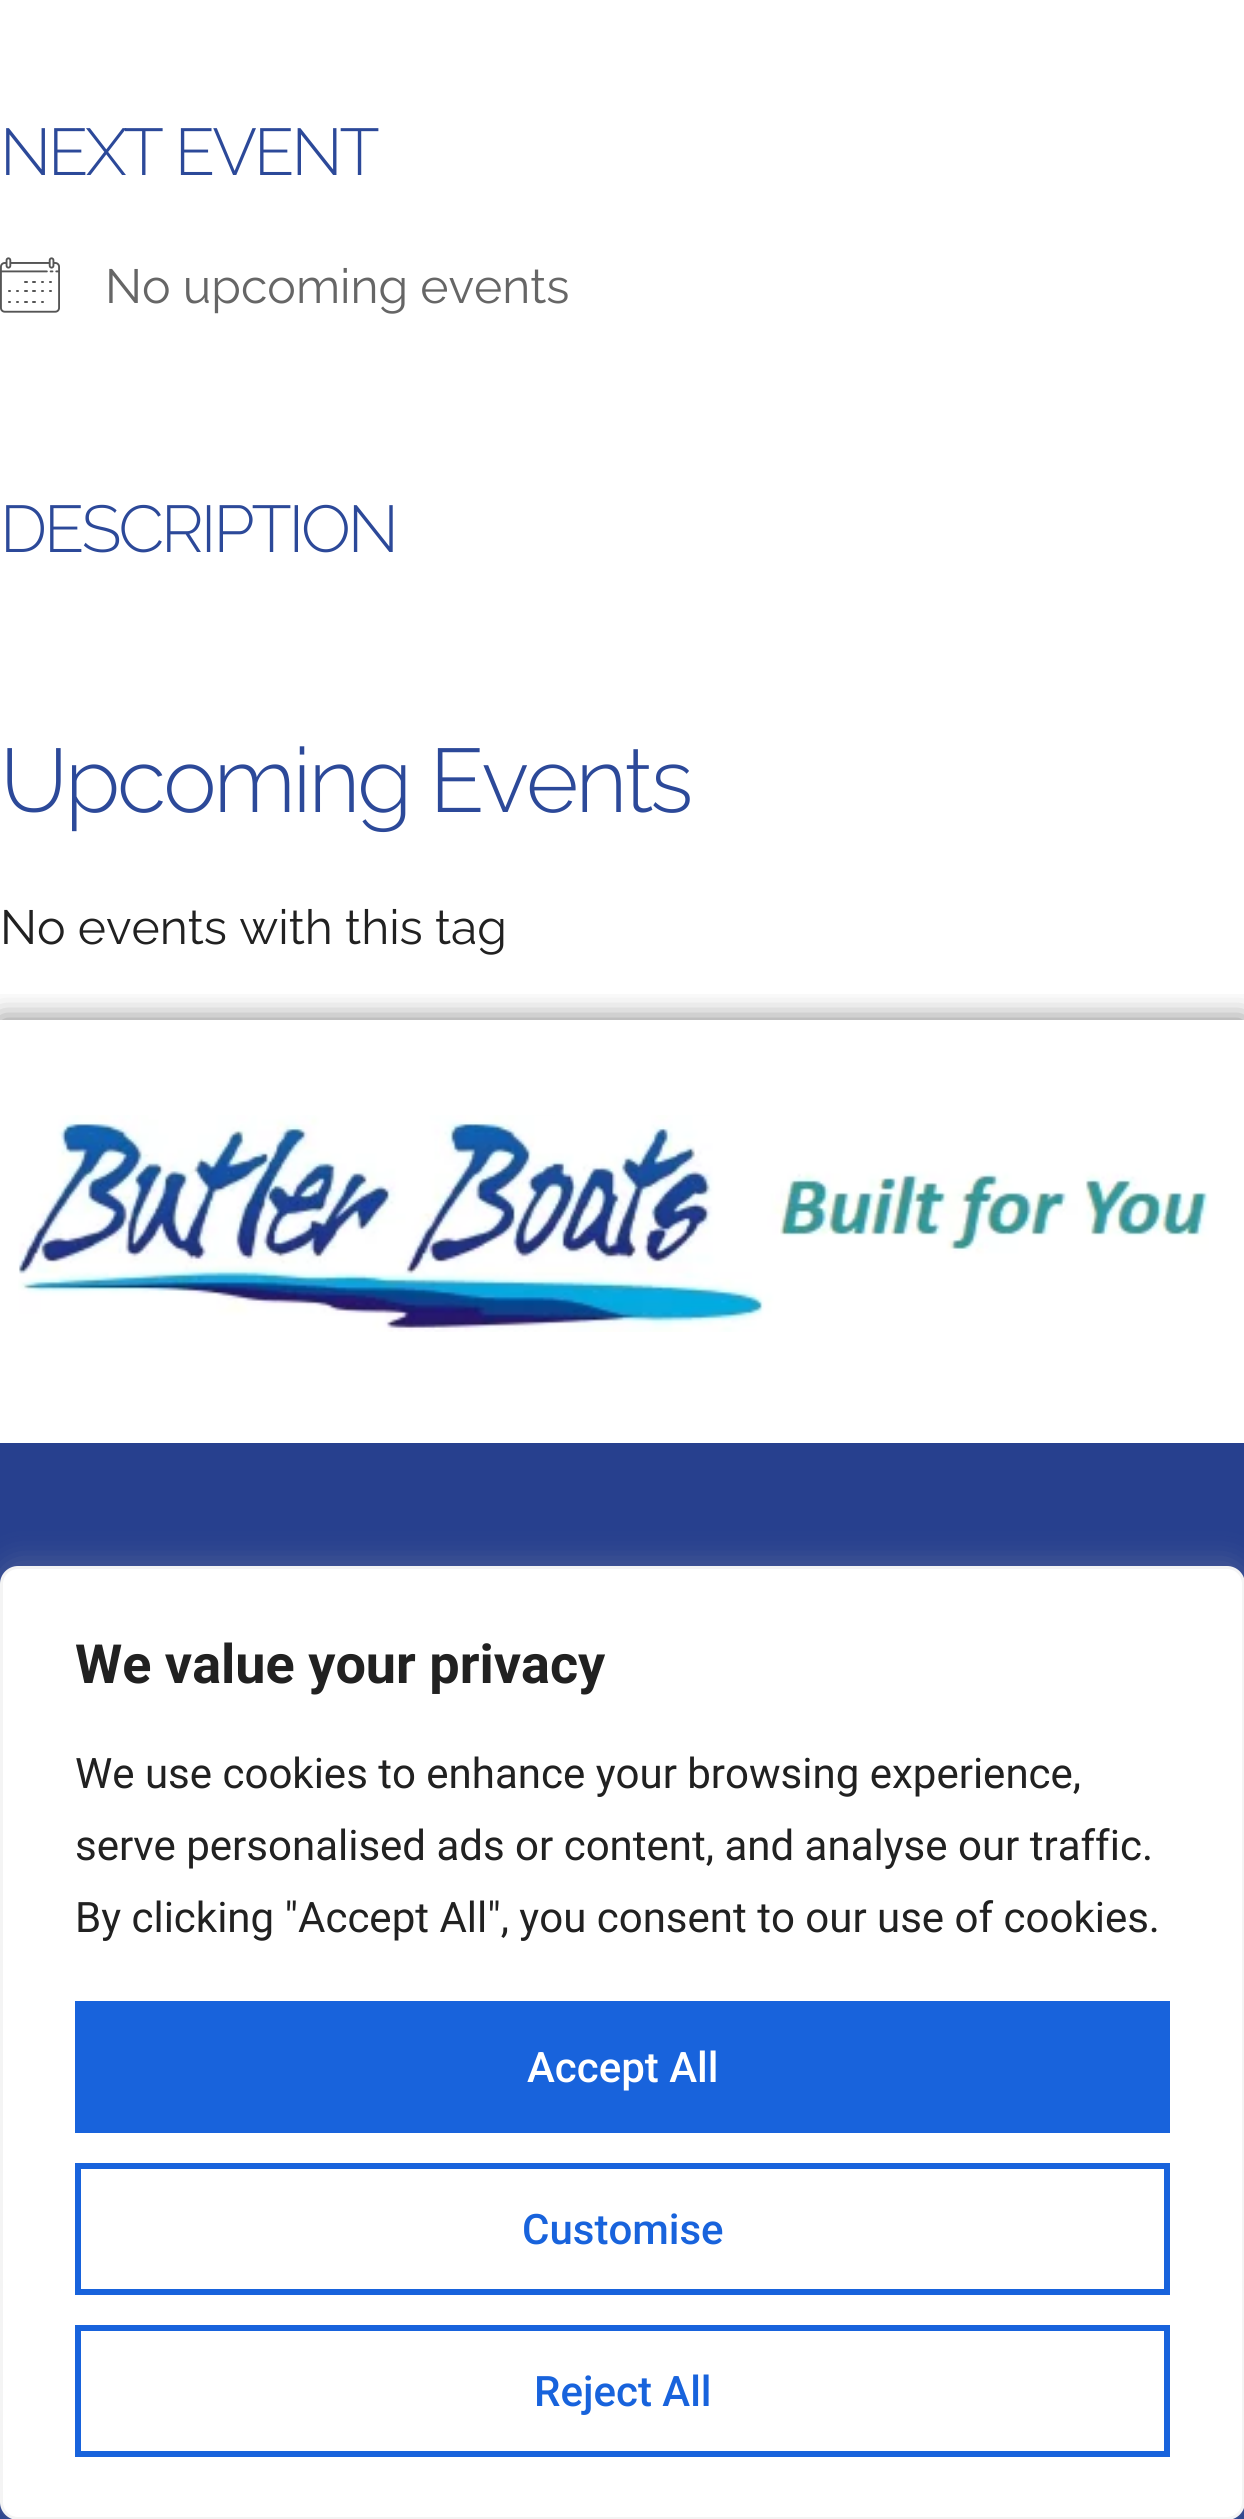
#include <cairo.h>
#include <math.h>
#include <stddef.h>


static void set_color(cairo_t *cr, unsigned color) {
    cairo_set_source_rgb(cr, (color >> 16) / 255.0, (color >> 8 & 255) / 255.0, (color & 255) / 255.0);
}

static void draw_text(cairo_t *cr, double x, double y, const char *s, const char *family, double size, int italic, int bold, unsigned color) {
    cairo_select_font_face(cr, family, italic ? CAIRO_FONT_SLANT_ITALIC : CAIRO_FONT_SLANT_NORMAL,
        bold ? CAIRO_FONT_WEIGHT_BOLD : CAIRO_FONT_WEIGHT_NORMAL);
    cairo_set_font_size(cr, size);
    set_color(cr, color);
    cairo_move_to(cr, x, y);
    cairo_show_text(cr, s);
}

static void draw_spaced(cairo_t *cr, double x, double y, const char *s, double letter, double word) {
    cairo_move_to(cr, x, y);
    while (*s) {
        char ch[5] = {0};
        int n = 0;
        do ch[n++] = *s++; while ((*s & 0xC0) == 0x80);
        cairo_show_text(cr, ch);
        cairo_rel_move_to(cr, letter + word * (*ch == ' '), 0);
    }
}

static void fill_rect(cairo_t *cr, double x, double y, double w, double h, unsigned color) {
    set_color(cr, color);
    cairo_rectangle(cr, x, y, w, h);
    cairo_fill(cr);
}

static void rounded_rect(cairo_t *cr, double x, double y, double w, double h, double r) {
    cairo_new_sub_path(cr);
    cairo_arc(cr, x + w - r, y + h - r, r, 0, M_PI / 2);
    cairo_arc(cr, x + r, y + h - r, r, M_PI / 2, M_PI);
    cairo_arc(cr, x + r, y + r, r, M_PI, 1.5 * M_PI);
    cairo_arc(cr, x + w - r, y + r, r, 1.5 * M_PI, 2 * M_PI);
    cairo_close_path(cr);
}

static void draw_shadow(cairo_t *cr, double x, double y, double w, double h, double r, double blur, double alpha) {
    cairo_push_group_with_content(cr, CAIRO_CONTENT_ALPHA);
    cairo_set_operator(cr, CAIRO_OPERATOR_SOURCE);
    for (int i = 15; i >= -15 && fmin(w, h) + blur * i / 3 > 0; i -= 2) {
        double e = blur * i / 6;
        cairo_set_source_rgba(cr, 0, 0, 0, alpha * erfc((i - 1) / 8.5) / 2);
        rounded_rect(cr, x - e, y - e, w + 2 * e, h + 2 * e, fmax(0, fmin(r + e + blur * .6, fmin(w, h) / 2 + e)));
        cairo_fill(cr);
    }
    cairo_pattern_t *soft = cairo_pop_group(cr);
    cairo_mask(cr, soft);
    cairo_pattern_destroy(soft);
}

static void draw_image(cairo_t *cr, const char *path, double x, double y, double w, double h) {
    cairo_surface_t *image = cairo_image_surface_create_from_png(path);
    cairo_save(cr);
    cairo_set_source_surface(cr, image, x, y);
    cairo_rectangle(cr, x, y, w, h);
    cairo_fill(cr);
    cairo_restore(cr);
    cairo_surface_destroy(image);
}

int main(void) {
    cairo_surface_t *surface = cairo_image_surface_create(CAIRO_FORMAT_RGB24, 1244, 2519);
    cairo_t *cr = cairo_create(surface);
    cairo_font_options_t *options = cairo_font_options_create();
    cairo_font_options_set_hint_metrics(options, CAIRO_HINT_METRICS_OFF);
    cairo_font_options_set_hint_style(options, CAIRO_HINT_STYLE_NONE);
    cairo_set_font_options(cr, options);
    cairo_set_miter_limit(cr, 4);
    set_color(cr, 0xFFFFFF);
    cairo_paint(cr);
    cairo_select_font_face(cr, "Raleway Light", CAIRO_FONT_SLANT_NORMAL, CAIRO_FONT_WEIGHT_NORMAL);
    cairo_set_font_size(cr, 66);
    set_color(cr, 0x2C4999);
    draw_spaced(cr, 0, 175, "NEXT EVENT", -3, 0);
    draw_image(cr, "assets/img1.png", 0, 257, 60, 56);
    draw_text(cr, 105, 303, "No upcoming events", "Raleway", 48, 0, 0, 0x666666);
    cairo_select_font_face(cr, "Raleway Light", CAIRO_FONT_SLANT_NORMAL, CAIRO_FONT_WEIGHT_NORMAL);
    cairo_set_font_size(cr, 66);
    set_color(cr, 0x2C4999);
    draw_spaced(cr, 0, 552, "DESCRIPTION", -3, 0);
    cairo_set_font_size(cr, 90);
    draw_spaced(cr, 0, 812, "Upcoming Events", -3, 0);
    draw_text(cr, 0, 944, "No events with this tag", "Raleway", 48, 0, 0, 0x212121);
    cairo_save(cr);
    cairo_rectangle(cr, 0, 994, 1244, 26);
    cairo_clip(cr);
    set_color(cr, 0x000000);
    draw_shadow(cr, 0, 1020, 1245, 423, 0, 15, 0.5);
    cairo_restore(cr);
    draw_image(cr, "assets/img2.png", 18, 1115, 1191, 217);
    fill_rect(cr, 0, 1443, 1244, 1076, 0x27408E);
    set_color(cr, 0xACABAB);
    draw_shadow(cr, 0, 1563, 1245, 954, 18, 15, 0.3);
    set_color(cr, 0xFFFFFF);
    rounded_rect(cr, 1.5, 1567.5, 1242, 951, 16.5);
    cairo_fill_preserve(cr);
    set_color(cr, 0xF4F4F4);
    cairo_set_line_width(cr, 3);
    cairo_stroke(cr);
    draw_text(cr, 75, 1683, "We value your privacy", "Roboto", 54, 0, 1, 0x212121);
    draw_text(cr, 75, 1788, "We use cookies to enhance your browsing experience,", "Roboto", 42, 0, 0, 0x212121);
    draw_text(cr, 75, 1860, "serve personalised ads or content, and analyse our traffic.", "Roboto", 42, 0, 0, 0x212121);
    draw_text(cr, 75, 1932, "By clicking \"Accept All\", you consent to our use of cookies.", "Roboto", 42, 0, 0, 0x212121);
    fill_rect(cr, 75, 2001, 1095, 132, 0x1863DC);
    draw_text(cr, 527, 2082, "Accept All", "Roboto Medium", 42, 0, 0, 0xFFFFFF);
    cairo_rectangle(cr, 78, 2166, 1089, 126);
    set_color(cr, 0x1863DC);
    cairo_set_line_width(cr, 6);
    cairo_stroke(cr);
    draw_text(cr, 522, 2244, "Customise", "Roboto Medium", 42, 0, 0, 0x1863DC);
    cairo_rectangle(cr, 78, 2328, 1089, 126);
    cairo_stroke(cr);
    draw_text(cr, 534, 2406, "Reject All", "Roboto Medium", 42, 0, 0, 0x1863DC);
    cairo_surface_write_to_png(surface, "output.png");
    cairo_font_options_destroy(options);
    cairo_destroy(cr);
    cairo_surface_destroy(surface);
    return 0;
}
